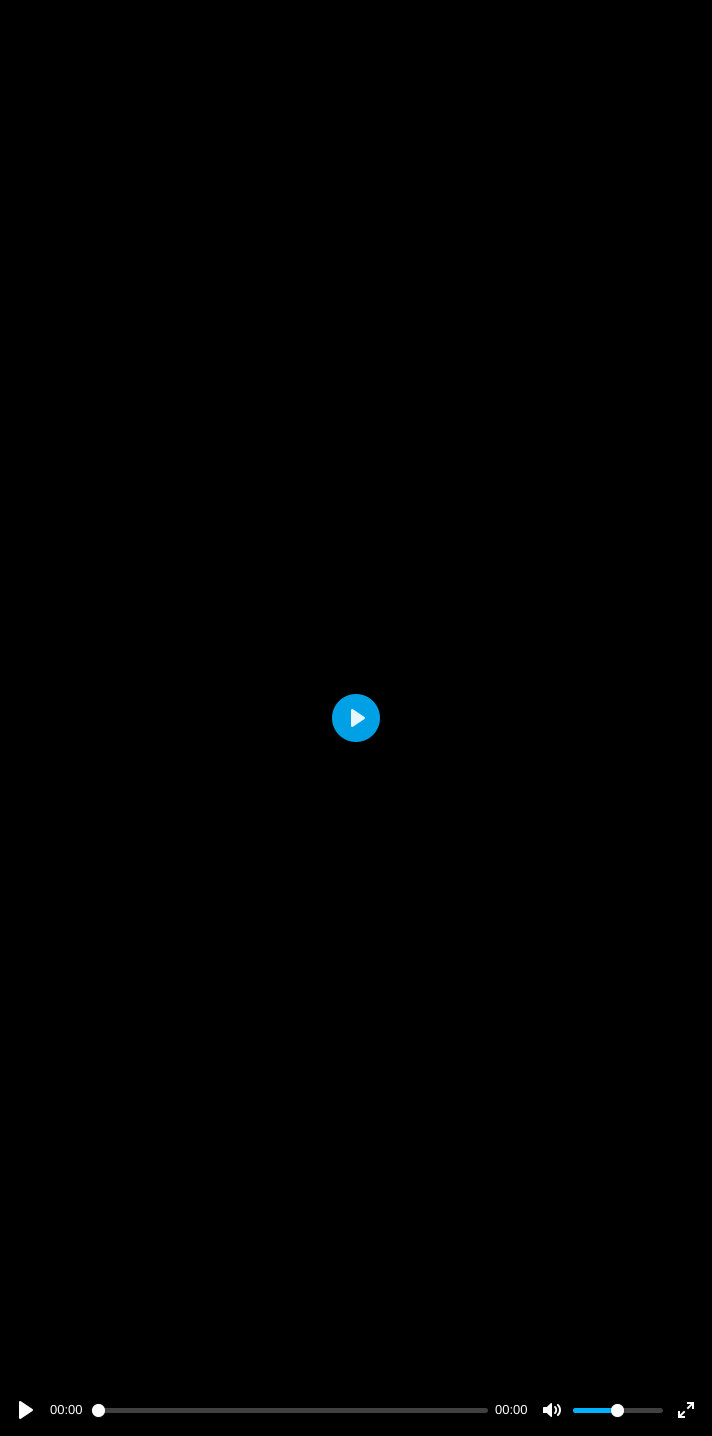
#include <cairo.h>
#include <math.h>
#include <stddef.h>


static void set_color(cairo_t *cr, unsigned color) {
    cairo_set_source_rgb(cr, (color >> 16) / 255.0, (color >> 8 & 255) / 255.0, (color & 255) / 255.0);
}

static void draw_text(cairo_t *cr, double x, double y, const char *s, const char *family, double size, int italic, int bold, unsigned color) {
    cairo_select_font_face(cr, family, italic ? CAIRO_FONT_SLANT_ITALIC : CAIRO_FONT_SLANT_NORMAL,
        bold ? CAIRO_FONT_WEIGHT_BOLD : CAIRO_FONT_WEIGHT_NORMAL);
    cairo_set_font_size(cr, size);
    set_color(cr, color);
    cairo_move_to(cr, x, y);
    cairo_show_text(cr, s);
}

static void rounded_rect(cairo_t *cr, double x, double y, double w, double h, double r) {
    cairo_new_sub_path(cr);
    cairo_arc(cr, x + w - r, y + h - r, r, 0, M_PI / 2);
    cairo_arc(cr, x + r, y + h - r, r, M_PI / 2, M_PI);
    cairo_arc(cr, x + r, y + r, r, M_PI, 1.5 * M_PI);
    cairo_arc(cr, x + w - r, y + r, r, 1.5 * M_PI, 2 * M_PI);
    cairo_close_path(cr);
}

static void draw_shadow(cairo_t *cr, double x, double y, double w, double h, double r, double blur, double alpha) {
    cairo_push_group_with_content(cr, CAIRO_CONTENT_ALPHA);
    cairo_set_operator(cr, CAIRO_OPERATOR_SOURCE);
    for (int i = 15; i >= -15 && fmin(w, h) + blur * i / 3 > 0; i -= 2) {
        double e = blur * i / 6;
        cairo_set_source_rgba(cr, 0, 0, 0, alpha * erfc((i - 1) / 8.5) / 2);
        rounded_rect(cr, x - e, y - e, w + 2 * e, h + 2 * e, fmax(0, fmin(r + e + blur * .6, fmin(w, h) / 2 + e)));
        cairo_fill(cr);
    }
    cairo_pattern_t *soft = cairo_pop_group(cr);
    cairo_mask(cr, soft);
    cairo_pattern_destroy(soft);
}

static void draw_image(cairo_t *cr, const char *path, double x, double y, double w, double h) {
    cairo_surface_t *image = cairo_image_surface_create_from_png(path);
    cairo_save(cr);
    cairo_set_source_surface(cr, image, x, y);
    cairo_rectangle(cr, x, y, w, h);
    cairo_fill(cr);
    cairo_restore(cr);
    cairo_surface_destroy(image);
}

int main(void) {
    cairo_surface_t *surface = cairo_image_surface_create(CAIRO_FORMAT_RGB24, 712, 1436);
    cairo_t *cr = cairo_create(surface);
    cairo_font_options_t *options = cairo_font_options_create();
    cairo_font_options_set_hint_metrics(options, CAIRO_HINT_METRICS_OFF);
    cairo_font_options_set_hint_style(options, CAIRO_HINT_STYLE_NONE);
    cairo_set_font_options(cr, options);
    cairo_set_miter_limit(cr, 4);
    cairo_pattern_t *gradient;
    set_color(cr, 0x000000);
    cairo_paint(cr);
    set_color(cr, 0x00A0E6);
    cairo_arc(cr, 356, 718, 24, 0, 2 * M_PI);
    cairo_fill(cr);
    draw_image(cr, "assets/img1.png", 351, 709, 14, 18);
    draw_image(cr, "assets/img2.png", 91, 1403, 534, 15);
    gradient = cairo_pattern_create_linear(356, 1359, 356, 1436);
    cairo_pattern_add_color_stop_rgba(gradient, 0, 0, 0, 0, 0);
    cairo_pattern_add_color_stop_rgba(gradient, 1, 0, 0, 0, 0.75);
    cairo_set_source(cr, gradient);
    cairo_pattern_destroy(gradient);
    cairo_rectangle(cr, 91, 1403, 534, 15);
    cairo_fill(cr);
    draw_image(cr, "assets/img3.png", 19, 1401, 14, 18);
    draw_text(cr, 50, 1414, "00:00", "Liberation Sans", 13, 0, 0, 0xFFFFFF);
    cairo_set_source_rgba(cr, 1, 1, 1, 0.25);
    rounded_rect(cr, 92, 1408, 396, 5, 2.5);
    cairo_fill(cr);
    cairo_arc(cr, 98.5, 1410.5, 7, 0, 2 * M_PI);
    cairo_set_source_rgba(cr, 0.137, 0.157, 0.184, 0.2);
    cairo_set_line_width(cr, 1);
    cairo_stroke(cr);
    set_color(cr, 0x23282F);
    draw_shadow(cr, 92, 1405, 13, 13, 6.5, 0.5, 0.15);
    set_color(cr, 0x000000);
    cairo_new_path(cr);
    cairo_move_to(cr, 95.5, 1400.5);
    cairo_line_to(cr, 101.5, 1400.5);
    cairo_line_to(cr, 98.5, 1403.5);
    cairo_close_path(cr);
    cairo_fill(cr);
    set_color(cr, 0xFFFFFF);
    cairo_arc(cr, 98.5, 1410.5, 6.5, 0, 2 * M_PI);
    cairo_fill(cr);
    draw_text(cr, 495, 1414, "00:00", "Liberation Sans", 13, 0, 0, 0xFFFFFF);
    draw_image(cr, "assets/img4.png", 543, 1403, 18, 14);
    cairo_set_source_rgba(cr, 1, 1, 1, 0.25);
    rounded_rect(cr, 573, 1408, 90, 5, 2.5);
    cairo_fill(cr);
    set_color(cr, 0x00B2FF);
    cairo_new_path(cr);
    cairo_move_to(cr, 575.5, 1408);
    cairo_line_to(cr, 618, 1408);
    cairo_line_to(cr, 618, 1413);
    cairo_line_to(cr, 575.5, 1413);
    cairo_curve_to(cr, 574, 1413, 573, 1412, 573, 1410.5);
    cairo_curve_to(cr, 573, 1409, 574, 1408, 575.5, 1408);
    cairo_close_path(cr);
    cairo_fill(cr);
    cairo_arc(cr, 617.5, 1410.5, 7, 0, 2 * M_PI);
    cairo_set_source_rgba(cr, 0.137, 0.157, 0.184, 0.2);
    cairo_stroke(cr);
    set_color(cr, 0x23282F);
    draw_shadow(cr, 611, 1405, 13, 13, 6.5, 0.5, 0.15);
    set_color(cr, 0xFFFFFF);
    cairo_arc(cr, 617.5, 1410.5, 6.5, 0, 2 * M_PI);
    cairo_fill(cr);
    draw_image(cr, "assets/img5.png", 678, 1402, 16, 16);
    cairo_surface_write_to_png(surface, "output.png");
    cairo_font_options_destroy(options);
    cairo_destroy(cr);
    cairo_surface_destroy(surface);
    return 0;
}
